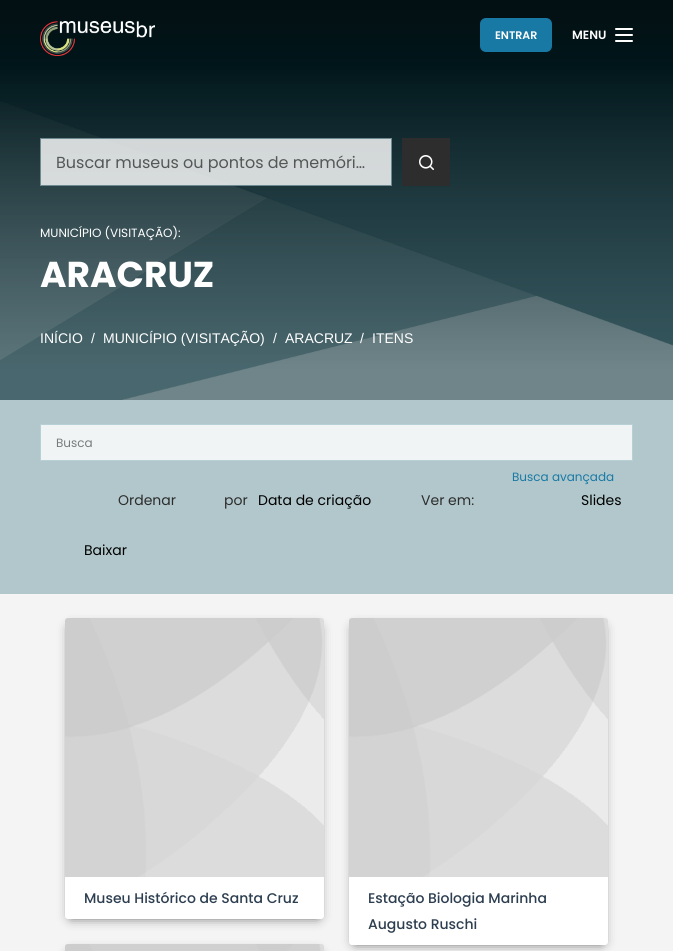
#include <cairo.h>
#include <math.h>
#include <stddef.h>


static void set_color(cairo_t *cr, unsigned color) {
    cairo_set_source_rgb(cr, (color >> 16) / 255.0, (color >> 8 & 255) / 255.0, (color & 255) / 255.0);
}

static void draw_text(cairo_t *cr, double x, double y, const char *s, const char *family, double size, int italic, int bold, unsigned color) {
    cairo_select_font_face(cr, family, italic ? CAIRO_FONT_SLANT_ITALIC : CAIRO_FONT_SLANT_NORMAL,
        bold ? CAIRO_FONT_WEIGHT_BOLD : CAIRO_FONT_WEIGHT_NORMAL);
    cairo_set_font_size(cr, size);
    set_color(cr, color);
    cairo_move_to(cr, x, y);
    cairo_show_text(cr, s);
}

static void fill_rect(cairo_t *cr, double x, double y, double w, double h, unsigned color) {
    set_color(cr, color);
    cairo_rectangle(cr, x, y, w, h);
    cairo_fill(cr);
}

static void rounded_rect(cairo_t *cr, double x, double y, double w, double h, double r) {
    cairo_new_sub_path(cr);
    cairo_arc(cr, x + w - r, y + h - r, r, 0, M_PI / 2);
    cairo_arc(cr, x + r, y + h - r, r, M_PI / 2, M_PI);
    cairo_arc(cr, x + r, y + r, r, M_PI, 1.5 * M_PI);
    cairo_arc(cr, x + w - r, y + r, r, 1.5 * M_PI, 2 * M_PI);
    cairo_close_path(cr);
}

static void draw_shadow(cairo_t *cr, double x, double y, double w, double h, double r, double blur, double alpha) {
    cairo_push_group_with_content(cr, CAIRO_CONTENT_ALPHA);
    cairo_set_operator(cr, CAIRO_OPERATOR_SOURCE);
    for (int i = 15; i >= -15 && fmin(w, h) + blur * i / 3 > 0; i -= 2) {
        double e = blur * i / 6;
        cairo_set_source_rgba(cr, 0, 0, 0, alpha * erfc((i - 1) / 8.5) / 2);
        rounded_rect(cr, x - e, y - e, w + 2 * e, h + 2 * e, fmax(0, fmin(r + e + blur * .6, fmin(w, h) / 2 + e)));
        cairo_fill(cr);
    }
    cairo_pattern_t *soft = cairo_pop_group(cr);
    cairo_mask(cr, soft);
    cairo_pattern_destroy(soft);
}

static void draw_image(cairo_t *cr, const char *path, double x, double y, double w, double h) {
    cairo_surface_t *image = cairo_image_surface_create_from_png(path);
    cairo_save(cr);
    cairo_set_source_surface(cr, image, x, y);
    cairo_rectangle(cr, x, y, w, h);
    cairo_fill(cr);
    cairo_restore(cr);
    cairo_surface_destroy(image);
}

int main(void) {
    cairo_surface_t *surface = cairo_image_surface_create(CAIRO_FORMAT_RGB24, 673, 951);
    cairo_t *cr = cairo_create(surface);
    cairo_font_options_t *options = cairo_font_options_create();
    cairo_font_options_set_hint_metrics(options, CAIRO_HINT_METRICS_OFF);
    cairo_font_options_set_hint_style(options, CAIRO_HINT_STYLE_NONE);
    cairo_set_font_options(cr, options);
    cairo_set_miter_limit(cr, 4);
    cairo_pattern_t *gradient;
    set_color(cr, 0xF4F4F4);
    cairo_paint(cr);
    gradient = cairo_pattern_create_linear(337, 0, 337, 70);
    cairo_pattern_add_color_stop_rgba(gradient, 0, 0.008, 0.059, 0.075, 1);
    cairo_pattern_add_color_stop_rgba(gradient, 0.28, 0.012, 0.067, 0.078, 1);
    cairo_pattern_add_color_stop_rgba(gradient, 1, 0, 0.086, 0.106, 1);
    cairo_set_source(cr, gradient);
    cairo_pattern_destroy(gradient);
    cairo_rectangle(cr, 0, 0, 673, 70);
    cairo_fill(cr);
    draw_image(cr, "assets/img1.png", 40, 21, 115, 35);
    set_color(cr, 0x1879A5);
    rounded_rect(cr, 480, 18, 72, 34, 6);
    cairo_fill(cr);
    draw_text(cr, 495, 39, "ENTRAR", "Poppins SemiBold", 11, 0, 0, 0xFFFFFF);
    draw_text(cr, 572, 39, "MENU", "Poppins SemiBold", 12, 0, 0, 0xFFFFFF);
    rounded_rect(cr, 615, 28, 18, 2, 1);
    cairo_fill(cr);
    rounded_rect(cr, 615, 34, 18, 2, 1);
    cairo_fill(cr);
    rounded_rect(cr, 615, 40, 18, 2, 1);
    cairo_fill(cr);
    draw_image(cr, "assets/img2.png", 0, 70, 673, 330);
    cairo_set_source_rgba(cr, 1, 1, 1, 0.81);
    cairo_rectangle(cr, 40.5, 138.5, 351, 47);
    cairo_fill_preserve(cr);
    set_color(cr, 0x6D8A90);
    cairo_set_line_width(cr, 1);
    cairo_stroke(cr);
    draw_text(cr, 56, 168, "Buscar museus ou pontos de memóri…", "Poppins", 16, 0, 0, 0x555757);
    fill_rect(cr, 402, 138, 48, 48, 0x2D2D2D);
    draw_image(cr, "assets/img3.png", 419, 155, 15, 15);
    draw_text(cr, 40, 237, "MUNICÍPIO (VISITAÇÃO):", "Poppins", 12, 0, 0, 0xFFFFFF);
    draw_text(cr, 40, 287, "ARACRUZ", "Poppins", 36, 0, 1, 0xFFFFFF);
    draw_text(cr, 40, 343, "INÍCIO", "Liberation Sans", 14, 0, 0, 0xFFFFFF);
    draw_text(cr, 91, 343, "/", "Liberation Sans", 14, 0, 0, 0xFFFFFF);
    draw_text(cr, 103, 343, "MUNICÍPIO (VISITAÇÃO)", "Liberation Sans", 14, 0, 0, 0xFFFFFF);
    draw_text(cr, 273, 343, "/", "Liberation Sans", 14, 0, 0, 0xFFFFFF);
    draw_text(cr, 285, 343, "ARACRUZ", "Liberation Sans", 14, 0, 0, 0xFFFFFF);
    draw_text(cr, 360, 343, "/", "Liberation Sans", 14, 0, 0, 0xFFFFFF);
    draw_text(cr, 372, 343, "ITENS", "Liberation Sans", 14, 0, 0, 0xFFFFFF);
    fill_rect(cr, 0, 400, 673, 194, 0xB1C7CB);
    set_color(cr, 0xF0F4F5);
    cairo_rectangle(cr, 40.5, 424.5, 592, 36);
    cairo_fill_preserve(cr);
    set_color(cr, 0xB7D0D5);
    cairo_stroke(cr);
    draw_text(cr, 56, 447, "Busca", "Poppins", 12, 0, 0, 0x787B7C);
    draw_text(cr, 512, 481, "Busca avançada", "Poppins", 12, 0, 0, 0x1879A5);
    draw_text(cr, 118, 505, "Ordenar", "Poppins", 14, 0, 0, 0x2D2D2D);
    draw_text(cr, 224, 505, "por", "Poppins", 14, 0, 0, 0x2D2D2D);
    draw_text(cr, 258, 505, "Data de criação", "Poppins", 14, 0, 0, 0x000000);
    draw_text(cr, 421, 505, "Ver em:", "Poppins", 14, 0, 0, 0x2D2D2D);
    draw_text(cr, 581, 505, "Slides", "Poppins", 14, 0, 0, 0x000000);
    draw_text(cr, 84, 555, "Baixar", "Poppins", 14, 0, 0, 0x000000);
    set_color(cr, 0x000000);
    draw_shadow(cr, 71, 628, 247, 289, 0, 6, 0.7);
    set_color(cr, 0xFFFFFF);
    rounded_rect(cr, 65, 618, 259, 301, 3);
    cairo_fill(cr);
    draw_image(cr, "assets/img4.png", 65, 618, 259, 259);
    draw_text(cr, 84, 903, "Museu Histórico de Santa Cruz", "Poppins Medium", 14, 0, 0, 0x2C3E50);
    set_color(cr, 0x000000);
    draw_shadow(cr, 355, 628, 247, 315, 0, 6, 0.7);
    set_color(cr, 0xFFFFFF);
    rounded_rect(cr, 349, 618, 259, 327, 3);
    cairo_fill(cr);
    draw_image(cr, "assets/img4.png", 349, 618, 259, 259);
    draw_text(cr, 368, 903, "Estação Biologia Marinha", "Poppins Medium", 14, 0, 0, 0x2C3E50);
    draw_text(cr, 368, 929, "Augusto Ruschi", "Poppins Medium", 14, 0, 0, 0x2C3E50);
    set_color(cr, 0x000000);
    draw_shadow(cr, 71, 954, 247, 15, 0, 6, 0.7);
    draw_image(cr, "assets/img5.png", 65, 944, 259, 7);
    cairo_surface_write_to_png(surface, "output.png");
    cairo_font_options_destroy(options);
    cairo_destroy(cr);
    cairo_surface_destroy(surface);
    return 0;
}
